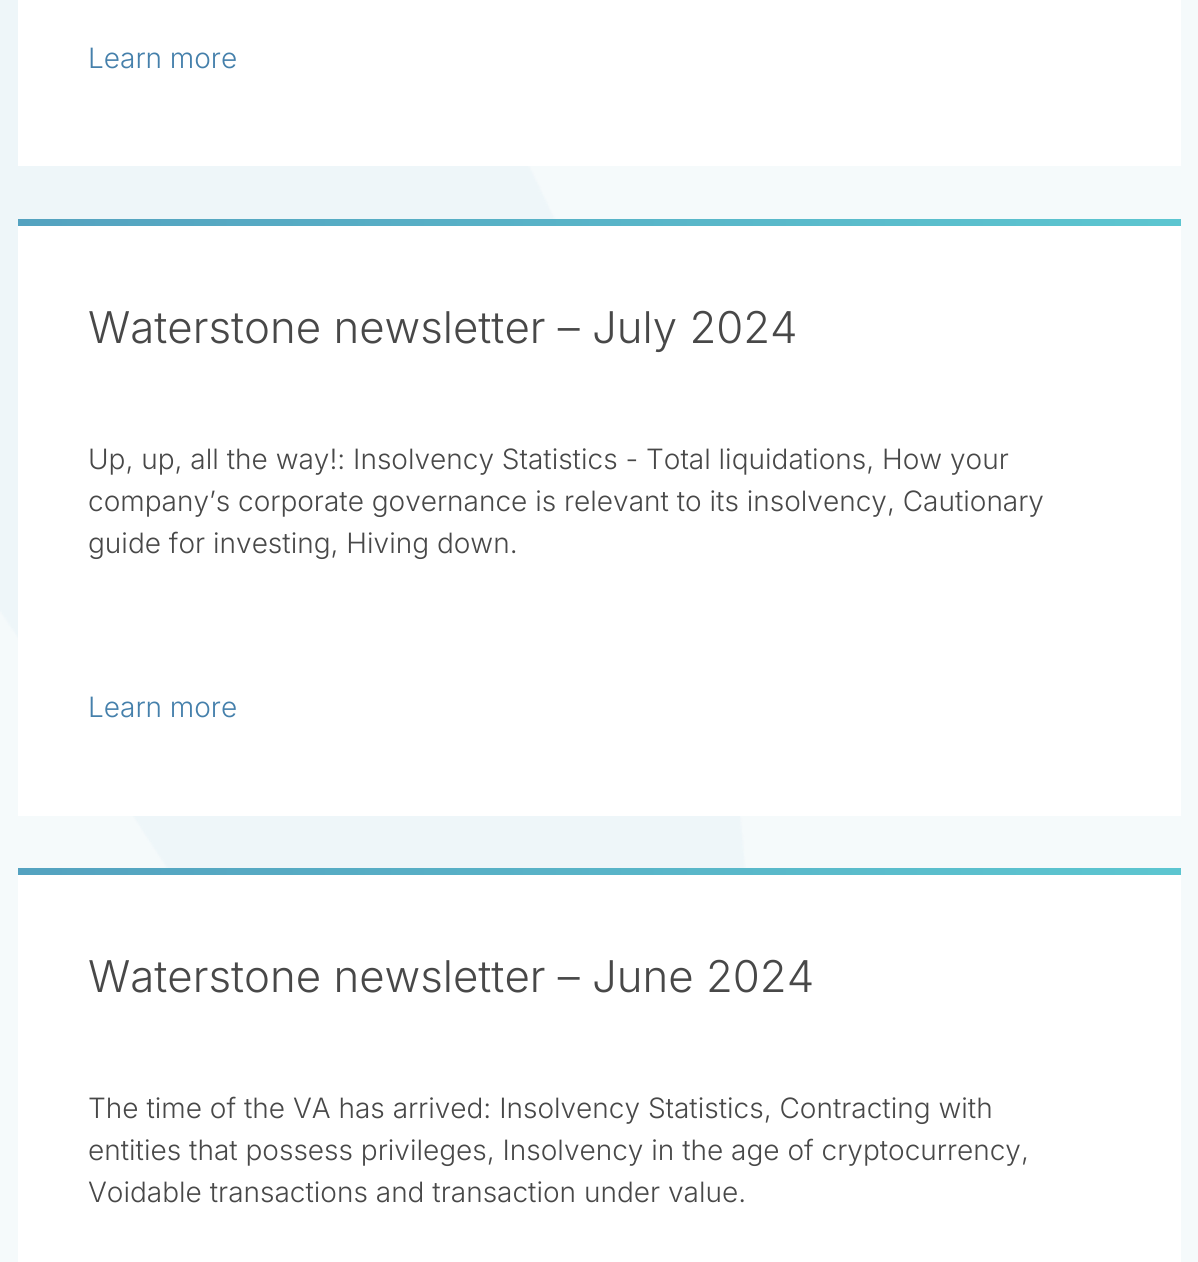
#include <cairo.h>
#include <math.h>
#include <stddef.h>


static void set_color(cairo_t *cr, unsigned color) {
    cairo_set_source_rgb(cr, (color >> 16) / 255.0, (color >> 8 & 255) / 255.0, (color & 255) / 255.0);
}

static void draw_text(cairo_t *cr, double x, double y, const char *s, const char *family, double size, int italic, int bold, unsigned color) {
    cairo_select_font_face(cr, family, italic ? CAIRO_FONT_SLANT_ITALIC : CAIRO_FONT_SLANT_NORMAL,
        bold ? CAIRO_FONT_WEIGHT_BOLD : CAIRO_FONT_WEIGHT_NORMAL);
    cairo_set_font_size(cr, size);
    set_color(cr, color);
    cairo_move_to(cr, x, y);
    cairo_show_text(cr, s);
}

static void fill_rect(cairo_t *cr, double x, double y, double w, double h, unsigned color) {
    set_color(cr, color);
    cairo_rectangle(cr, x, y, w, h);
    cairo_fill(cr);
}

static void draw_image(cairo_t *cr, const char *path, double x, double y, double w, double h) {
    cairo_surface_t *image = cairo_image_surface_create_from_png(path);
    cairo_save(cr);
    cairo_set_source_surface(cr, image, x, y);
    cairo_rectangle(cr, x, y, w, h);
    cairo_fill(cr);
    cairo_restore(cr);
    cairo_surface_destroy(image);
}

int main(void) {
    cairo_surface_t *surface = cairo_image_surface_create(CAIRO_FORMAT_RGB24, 1198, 1262);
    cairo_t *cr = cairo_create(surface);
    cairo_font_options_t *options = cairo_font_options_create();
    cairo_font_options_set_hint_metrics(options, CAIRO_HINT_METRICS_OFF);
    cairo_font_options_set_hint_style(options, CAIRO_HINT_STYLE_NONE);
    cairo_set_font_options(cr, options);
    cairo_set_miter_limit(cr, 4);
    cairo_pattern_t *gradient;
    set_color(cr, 0xF5FAFB);
    cairo_paint(cr);
    draw_image(cr, "assets/img1.png", 0, 0, 746, 868);
    fill_rect(cr, 18, 0, 1163, 166, 0xFFFFFF);
    draw_text(cr, 88, 68, "Learn more", "Inter Light", 28, 0, 0, 0x4580AB);
    fill_rect(cr, 18, 226, 1163, 590, 0xFFFFFF);
    gradient = cairo_pattern_create_linear(-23, 222, 1193, 222);
    cairo_pattern_add_color_stop_rgba(gradient, 0, 0.329, 0.631, 0.749, 1);
    cairo_pattern_add_color_stop_rgba(gradient, 1, 0.361, 0.776, 0.816, 1);
    cairo_set_source(cr, gradient);
    cairo_pattern_destroy(gradient);
    cairo_rectangle(cr, 18, 219, 1163, 7);
    cairo_fill(cr);
    draw_text(cr, 88, 343, "Waterstone newsletter – July 2024", "Inter Light", 43.75, 0, 0, 0x484848);
    draw_text(cr, 88, 469, "Up, up, all the way!: Insolvency Statistics - Total liquidations, How your", "Inter Light", 28, 0, 0, 0x484848);
    draw_text(cr, 88, 511, "company’s corporate governance is relevant to its insolvency, Cautionary", "Inter Light", 28, 0, 0, 0x484848);
    draw_text(cr, 88, 553, "guide for investing, Hiving down.", "Inter Light", 28, 0, 0, 0x484848);
    draw_text(cr, 88, 717, "Learn more", "Inter Light", 28, 0, 0, 0x4580AB);
    fill_rect(cr, 18, 875, 1163, 387, 0xFFFFFF);
    gradient = cairo_pattern_create_linear(-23, 872, 1193, 872);
    cairo_pattern_add_color_stop_rgba(gradient, 0, 0.329, 0.631, 0.749, 1);
    cairo_pattern_add_color_stop_rgba(gradient, 1, 0.361, 0.776, 0.816, 1);
    cairo_set_source(cr, gradient);
    cairo_pattern_destroy(gradient);
    cairo_rectangle(cr, 18, 868, 1163, 7);
    cairo_fill(cr);
    draw_text(cr, 88, 992, "Waterstone newsletter – June 2024", "Inter Light", 43.75, 0, 0, 0x484848);
    draw_text(cr, 88, 1118, "The time of the VA has arrived: Insolvency Statistics, Contracting with", "Inter Light", 28, 0, 0, 0x484848);
    draw_text(cr, 88, 1160, "entities that possess privileges, Insolvency in the age of cryptocurrency,", "Inter Light", 28, 0, 0, 0x484848);
    draw_text(cr, 88, 1202, "Voidable transactions and transaction under value.", "Inter Light", 28, 0, 0, 0x484848);
    cairo_surface_write_to_png(surface, "output.png");
    cairo_font_options_destroy(options);
    cairo_destroy(cr);
    cairo_surface_destroy(surface);
    return 0;
}
